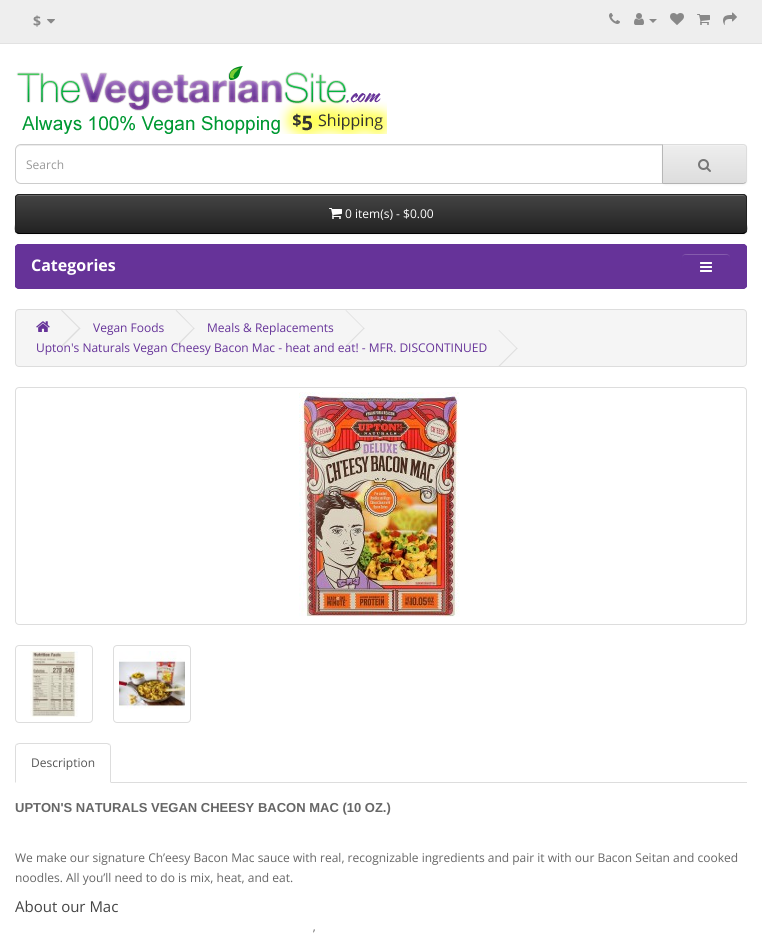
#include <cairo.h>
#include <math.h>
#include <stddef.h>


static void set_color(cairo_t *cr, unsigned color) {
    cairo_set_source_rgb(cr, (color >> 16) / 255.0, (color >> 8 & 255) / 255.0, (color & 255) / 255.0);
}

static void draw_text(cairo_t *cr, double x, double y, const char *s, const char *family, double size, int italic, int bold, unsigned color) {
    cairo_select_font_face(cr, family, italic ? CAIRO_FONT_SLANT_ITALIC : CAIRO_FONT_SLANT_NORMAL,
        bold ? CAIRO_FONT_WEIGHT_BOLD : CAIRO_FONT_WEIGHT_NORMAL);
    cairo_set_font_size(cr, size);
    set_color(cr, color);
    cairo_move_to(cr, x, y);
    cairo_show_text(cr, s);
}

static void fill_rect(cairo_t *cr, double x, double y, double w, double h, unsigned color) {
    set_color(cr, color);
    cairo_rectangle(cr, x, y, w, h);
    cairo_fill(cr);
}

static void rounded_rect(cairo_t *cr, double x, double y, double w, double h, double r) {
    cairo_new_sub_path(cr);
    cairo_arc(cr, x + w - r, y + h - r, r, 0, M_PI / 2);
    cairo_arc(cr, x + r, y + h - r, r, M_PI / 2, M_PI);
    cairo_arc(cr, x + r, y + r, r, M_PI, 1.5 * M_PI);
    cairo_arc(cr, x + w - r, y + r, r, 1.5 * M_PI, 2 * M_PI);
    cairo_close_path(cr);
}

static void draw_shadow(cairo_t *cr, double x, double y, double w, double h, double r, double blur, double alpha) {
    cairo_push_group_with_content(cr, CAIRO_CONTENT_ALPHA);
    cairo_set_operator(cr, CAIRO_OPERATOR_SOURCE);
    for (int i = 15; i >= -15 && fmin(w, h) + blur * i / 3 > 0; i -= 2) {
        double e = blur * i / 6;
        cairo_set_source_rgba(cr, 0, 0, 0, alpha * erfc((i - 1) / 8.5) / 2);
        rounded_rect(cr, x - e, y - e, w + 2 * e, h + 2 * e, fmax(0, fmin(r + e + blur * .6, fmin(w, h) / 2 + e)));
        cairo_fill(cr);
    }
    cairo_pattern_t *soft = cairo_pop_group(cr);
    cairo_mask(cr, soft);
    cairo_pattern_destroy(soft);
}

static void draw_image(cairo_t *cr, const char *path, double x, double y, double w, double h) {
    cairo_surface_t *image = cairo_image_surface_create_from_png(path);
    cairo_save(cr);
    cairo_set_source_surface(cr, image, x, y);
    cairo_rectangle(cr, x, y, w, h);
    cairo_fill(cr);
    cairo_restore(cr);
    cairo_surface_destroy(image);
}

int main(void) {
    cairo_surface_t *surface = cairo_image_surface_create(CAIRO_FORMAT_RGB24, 762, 934);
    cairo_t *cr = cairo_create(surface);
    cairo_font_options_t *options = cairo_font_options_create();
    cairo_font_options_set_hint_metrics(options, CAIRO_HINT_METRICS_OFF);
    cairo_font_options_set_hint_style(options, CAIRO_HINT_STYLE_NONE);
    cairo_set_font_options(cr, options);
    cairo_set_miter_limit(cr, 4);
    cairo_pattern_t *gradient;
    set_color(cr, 0xFFFFFF);
    cairo_paint(cr);
    fill_rect(cr, 0, 0, 762, 43, 0xEEEEEE);
    fill_rect(cr, 0, 43, 762, 1, 0xE2E2E2);
    draw_text(cr, 33, 26, "$", "Open Sans", 14, 0, 1, 0x888888);
    draw_image(cr, "assets/img1.png", 47, 19, 8, 5);
    draw_image(cr, "assets/img2.png", 609, 13, 11, 11);
    draw_image(cr, "assets/img3.png", 634, 13, 10, 12);
    cairo_new_path(cr);
    cairo_move_to(cr, 649, 19);
    cairo_line_to(cr, 657, 19);
    cairo_line_to(cr, 653, 23);
    cairo_close_path(cr);
    cairo_fill(cr);
    draw_image(cr, "assets/img4.png", 670, 13, 14, 12);
    draw_image(cr, "assets/img5.png", 697, 14, 13, 11);
    draw_image(cr, "assets/img6.png", 723, 12, 14, 13);
    draw_image(cr, "assets/img7.png", 16, 66, 371, 68);
    set_color(cr, 0xECECEC);
    cairo_new_path(cr);
    cairo_move_to(cr, 21, 146);
    cairo_line_to(cr, 662, 146);
    cairo_line_to(cr, 662, 145);
    cairo_line_to(cr, 21, 145);
    cairo_curve_to(cr, 18, 145, 16, 148, 16, 151);
    cairo_curve_to(cr, 16, 148, 18, 146, 21, 146);
    cairo_close_path(cr);
    cairo_fill(cr);
    cairo_new_path(cr);
    cairo_move_to(cr, 21, 144.5);
    cairo_line_to(cr, 662.5, 144.5);
    cairo_line_to(cr, 662.5, 183.5);
    cairo_line_to(cr, 21, 183.5);
    cairo_curve_to(cr, 18, 183.5, 15.5, 181, 15.5, 178);
    cairo_line_to(cr, 15.5, 150);
    cairo_curve_to(cr, 15.5, 147, 18, 144.5, 21, 144.5);
    cairo_close_path(cr);
    set_color(cr, 0xCCCCCC);
    cairo_set_line_width(cr, 1);
    cairo_stroke(cr);
    draw_text(cr, 26, 169, "Search", "Open Sans", 12, 0, 0, 0x999999);
    set_color(cr, 0x000000);
    draw_shadow(cr, 662, 145, 85, 40, 4, 1, 0.05);
    set_color(cr, 0xE7E7E7);
    cairo_new_path(cr);
    cairo_move_to(cr, 662, 144);
    cairo_line_to(cr, 743, 144);
    cairo_curve_to(cr, 745, 144, 747, 146, 747, 148);
    cairo_line_to(cr, 747, 180);
    cairo_curve_to(cr, 747, 182, 745, 184, 743, 184);
    cairo_line_to(cr, 662, 184);
    cairo_close_path(cr);
    cairo_fill(cr);
    cairo_save(cr);
    cairo_new_path(cr);
    cairo_move_to(cr, 662, 144);
    cairo_line_to(cr, 743, 144);
    cairo_curve_to(cr, 745, 144, 747, 146, 747, 148);
    cairo_line_to(cr, 747, 180);
    cairo_curve_to(cr, 747, 182, 745, 184, 743, 184);
    cairo_line_to(cr, 662, 184);
    cairo_close_path(cr);
    cairo_clip(cr);
    gradient = cairo_pattern_create_linear(705, 145, 705, 183);
    cairo_pattern_add_color_stop_rgba(gradient, 0, 0.933, 0.933, 0.933, 1);
    cairo_pattern_add_color_stop_rgba(gradient, 1, 0.867, 0.867, 0.867, 1);
    cairo_set_source(cr, gradient);
    cairo_pattern_destroy(gradient);
    cairo_rectangle(cr, 663, 145, 84, 38);
    cairo_fill(cr);
    cairo_restore(cr);
    set_color(cr, 0xF1F1F1);
    cairo_new_path(cr);
    cairo_move_to(cr, 663, 146);
    cairo_line_to(cr, 743, 146);
    cairo_curve_to(cr, 745, 146, 746, 147, 746, 149);
    cairo_line_to(cr, 746, 148);
    cairo_curve_to(cr, 746, 146, 745, 145, 743, 145);
    cairo_line_to(cr, 663, 145);
    cairo_close_path(cr);
    cairo_fill(cr);
    set_color(cr, 0xDDDDDD);
    cairo_new_path(cr);
    cairo_move_to(cr, 662, 144);
    cairo_line_to(cr, 663, 145);
    cairo_line_to(cr, 744, 145);
    cairo_line_to(cr, 745, 146);
    cairo_line_to(cr, 746, 145);
    cairo_line_to(cr, 743, 144);
    cairo_close_path(cr);
    cairo_fill(cr);
    cairo_new_path(cr);
    cairo_move_to(cr, 747, 180);
    cairo_line_to(cr, 747, 148);
    cairo_curve_to(cr, 747, 147, 746.5, 146, 746, 145);
    cairo_line_to(cr, 745, 146);
    cairo_curve_to(cr, 746, 146, 746, 147, 746, 148);
    cairo_line_to(cr, 746, 180);
    cairo_curve_to(cr, 746, 181, 746, 182, 745, 182);
    cairo_line_to(cr, 746, 183);
    cairo_curve_to(cr, 746.5, 182, 747, 181, 747, 180);
    cairo_close_path(cr);
    cairo_fill(cr);
    set_color(cr, 0xB3B3B3);
    cairo_new_path(cr);
    cairo_move_to(cr, 743, 184);
    cairo_line_to(cr, 746, 183);
    cairo_line_to(cr, 745, 182);
    cairo_line_to(cr, 744, 183);
    cairo_line_to(cr, 663, 183);
    cairo_line_to(cr, 662, 184);
    cairo_close_path(cr);
    cairo_fill(cr);
    set_color(cr, 0xB7B7B7);
    cairo_new_path(cr);
    cairo_move_to(cr, 662, 144);
    cairo_line_to(cr, 662, 184);
    cairo_line_to(cr, 663, 183);
    cairo_line_to(cr, 663, 145);
    cairo_close_path(cr);
    cairo_fill(cr);
    draw_image(cr, "assets/img8.png", 698, 159, 13, 13);
    set_color(cr, 0x000000);
    draw_shadow(cr, 15, 195, 732, 40, 4, 1, 0.05);
    set_color(cr, 0x363636);
    rounded_rect(cr, 15, 194, 732, 40, 4);
    cairo_fill(cr);
    cairo_save(cr);
    rounded_rect(cr, 15, 194, 732, 40, 4);
    cairo_clip(cr);
    gradient = cairo_pattern_create_linear(381, 195, 381, 233);
    cairo_pattern_add_color_stop_rgba(gradient, 0, 0.267, 0.267, 0.267, 1);
    cairo_pattern_add_color_stop_rgba(gradient, 1, 0.133, 0.133, 0.133, 1);
    cairo_set_source(cr, gradient);
    cairo_pattern_destroy(gradient);
    cairo_rectangle(cr, 15, 195, 732, 38);
    cairo_fill(cr);
    cairo_restore(cr);
    set_color(cr, 0x696969);
    cairo_new_path(cr);
    cairo_move_to(cr, 19, 196);
    cairo_line_to(cr, 743, 196);
    cairo_curve_to(cr, 745, 196, 746, 197, 746, 199);
    cairo_curve_to(cr, 746, 197, 745, 195, 743, 195);
    cairo_line_to(cr, 19, 195);
    cairo_curve_to(cr, 17, 195, 16, 197, 16, 199);
    cairo_curve_to(cr, 16, 197, 17, 196, 19, 196);
    cairo_close_path(cr);
    cairo_fill(cr);
    cairo_new_path(cr);
    cairo_move_to(cr, 745.5, 232.5);
    cairo_line_to(cr, 743, 233.5);
    cairo_line_to(cr, 19, 233.5);
    cairo_line_to(cr, 16.5, 232.5);
    set_color(cr, 0x000000);
    cairo_stroke(cr);
    cairo_new_path(cr);
    cairo_move_to(cr, 16.5, 232.5);
    cairo_curve_to(cr, 14.5, 230.5, 15.5, 226.5, 15.5, 224.5);
    cairo_line_to(cr, 15.5, 197.5);
    cairo_curve_to(cr, 15.5, 196, 17, 194.5, 19, 194.5);
    cairo_line_to(cr, 743, 194.5);
    cairo_curve_to(cr, 745, 194.5, 746.5, 196, 746.5, 197.5);
    cairo_line_to(cr, 746.5, 224.5);
    cairo_curve_to(cr, 746.5, 226.5, 747.5, 230.5, 745.5, 232.5);
    set_color(cr, 0x222222);
    cairo_stroke(cr);
    draw_image(cr, "assets/img9.png", 329, 208, 13, 11);
    draw_text(cr, 345, 218, "0 item(s) - $0.00", "Open Sans", 12, 0, 0, 0xFFFFFF);
    set_color(cr, 0x663397);
    rounded_rect(cr, 15, 244, 732, 45, 4);
    cairo_fill(cr);
    cairo_save(cr);
    rounded_rect(cr, 15, 244, 732, 45, 4);
    cairo_clip(cr);
    gradient = cairo_pattern_create_linear(381, 245, 381, 288);
    cairo_pattern_add_color_stop_rgba(gradient, 0, 0.4, 0.2, 0.6, 1);
    cairo_pattern_add_color_stop_rgba(gradient, 1, 0.4, 0.2, 0.596, 1);
    cairo_set_source(cr, gradient);
    cairo_pattern_destroy(gradient);
    cairo_rectangle(cr, 15, 245, 732, 43);
    cairo_fill(cr);
    cairo_restore(cr);
    cairo_new_path(cr);
    cairo_move_to(cr, 745.5, 287.5);
    cairo_line_to(cr, 743, 288.5);
    cairo_line_to(cr, 19, 288.5);
    cairo_line_to(cr, 16.5, 287.5);
    cairo_stroke(cr);
    cairo_new_path(cr);
    cairo_move_to(cr, 16.5, 287.5);
    cairo_curve_to(cr, 16, 287, 15.5, 286, 15.5, 285);
    cairo_line_to(cr, 15.5, 248);
    cairo_curve_to(cr, 15.5, 247, 16, 246, 16.5, 245.5);
    cairo_curve_to(cr, 17, 245, 18, 244.5, 19, 244.5);
    cairo_line_to(cr, 743, 244.5);
    cairo_curve_to(cr, 744, 244.5, 745, 245, 745.5, 245.5);
    cairo_curve_to(cr, 746, 246, 746.5, 247, 746.5, 248);
    cairo_line_to(cr, 746.5, 285);
    cairo_curve_to(cr, 746.5, 286, 746, 287, 745.5, 287.5);
    set_color(cr, 0x663398);
    cairo_stroke(cr);
    draw_text(cr, 31, 271, "Categories", "Open Sans", 16, 0, 1, 0xFFFFFF);
    set_color(cr, 0x855CAD);
    cairo_new_path(cr);
    cairo_move_to(cr, 685, 255);
    cairo_line_to(cr, 727, 255);
    cairo_curve_to(cr, 729, 255, 730, 256, 730, 258);
    cairo_curve_to(cr, 730, 252, 724, 254, 720, 254);
    cairo_line_to(cr, 692, 254);
    cairo_curve_to(cr, 688, 254, 682, 252, 682, 258);
    cairo_curve_to(cr, 682, 256, 683, 255, 685, 255);
    cairo_close_path(cr);
    cairo_fill(cr);
    cairo_new_path(cr);
    cairo_move_to(cr, 682.5, 278.5);
    cairo_curve_to(cr, 680.5, 276.5, 681.5, 269, 681.5, 266.5);
    cairo_curve_to(cr, 681.5, 253.5, 679.5, 253.5, 692, 253.5);
    cairo_line_to(cr, 720, 253.5);
    cairo_curve_to(cr, 732.5, 253.5, 730.5, 253.5, 730.5, 266.5);
    cairo_curve_to(cr, 730.5, 269, 731.5, 276.5, 729.5, 278.5);
    set_color(cr, 0x663398);
    cairo_stroke(cr);
    draw_image(cr, "assets/img10.png", 700, 262, 12, 10);
    set_color(cr, 0xF5F5F5);
    rounded_rect(cr, 15.5, 309.5, 731, 57, 3.5);
    cairo_fill_preserve(cr);
    set_color(cr, 0xDDDDDD);
    cairo_stroke(cr);
    draw_image(cr, "assets/img11.png", 36, 321, 14, 11);
    cairo_new_path(cr);
    cairo_move_to(cr, 61, 310.5);
    cairo_line_to(cr, 62, 310);
    cairo_line_to(cr, 80.5, 328.5);
    cairo_line_to(cr, 79.5, 329);
    cairo_close_path(cr);
    cairo_fill(cr);
    cairo_new_path(cr);
    cairo_move_to(cr, 61, 346);
    cairo_line_to(cr, 79.5, 327.5);
    cairo_line_to(cr, 80.5, 328.5);
    cairo_line_to(cr, 62, 347);
    cairo_close_path(cr);
    cairo_fill(cr);
    draw_text(cr, 93, 332, "Vegan Foods", "Open Sans", 12, 0, 0, 0x663399);
    set_color(cr, 0xDDDDDD);
    cairo_new_path(cr);
    cairo_move_to(cr, 175.5, 310.5);
    cairo_line_to(cr, 176.5, 310);
    cairo_line_to(cr, 194.5, 328.5);
    cairo_line_to(cr, 194, 329);
    cairo_close_path(cr);
    cairo_fill(cr);
    cairo_new_path(cr);
    cairo_move_to(cr, 175.5, 346);
    cairo_line_to(cr, 194, 327.5);
    cairo_line_to(cr, 194.5, 328.5);
    cairo_line_to(cr, 176.5, 347);
    cairo_close_path(cr);
    cairo_fill(cr);
    draw_text(cr, 207, 332, "Meals & Replacements", "Open Sans", 12, 0, 0, 0x663399);
    set_color(cr, 0xDDDDDD);
    cairo_new_path(cr);
    cairo_move_to(cr, 345.5, 310.5);
    cairo_line_to(cr, 346, 310);
    cairo_line_to(cr, 364.5, 328.5);
    cairo_line_to(cr, 364, 329);
    cairo_close_path(cr);
    cairo_fill(cr);
    cairo_new_path(cr);
    cairo_move_to(cr, 345.5, 346);
    cairo_line_to(cr, 364, 327.5);
    cairo_line_to(cr, 364.5, 328.5);
    cairo_line_to(cr, 346, 347);
    cairo_close_path(cr);
    cairo_fill(cr);
    draw_text(cr, 36, 352, "Upton's Naturals Vegan Cheesy Bacon Mac - heat and eat! - MFR. DISCONTINUED", "Open Sans", 12, 0, 0, 0x663399);
    set_color(cr, 0xDDDDDD);
    cairo_new_path(cr);
    cairo_move_to(cr, 498.5, 330.5);
    cairo_line_to(cr, 499, 330);
    cairo_line_to(cr, 517.5, 348.5);
    cairo_line_to(cr, 517, 349);
    cairo_close_path(cr);
    cairo_fill(cr);
    cairo_new_path(cr);
    cairo_move_to(cr, 498.5, 366);
    cairo_line_to(cr, 517, 347.5);
    cairo_line_to(cr, 517.5, 348.5);
    cairo_line_to(cr, 499, 367);
    cairo_close_path(cr);
    cairo_fill(cr);
    rounded_rect(cr, 15.5, 387.5, 731, 237, 3.5);
    cairo_stroke(cr);
    draw_image(cr, "assets/img12.png", 299, 392, 161, 225);
    rounded_rect(cr, 15.5, 645.5, 77, 77, 3.5);
    cairo_stroke(cr);
    draw_image(cr, "assets/img13.png", 30, 651, 48, 66);
    rounded_rect(cr, 113.5, 645.5, 77, 77, 3.5);
    cairo_stroke(cr);
    draw_image(cr, "assets/img14.png", 119, 651, 66, 58);
    fill_rect(cr, 111, 782, 636, 1, 0xDDDDDD);
    cairo_new_path(cr);
    cairo_move_to(cr, 19, 743);
    cairo_line_to(cr, 16, 744);
    cairo_line_to(cr, 17, 745);
    cairo_line_to(cr, 19, 744);
    cairo_line_to(cr, 107, 744);
    cairo_line_to(cr, 109, 745);
    cairo_line_to(cr, 110, 744);
    cairo_line_to(cr, 107, 743);
    cairo_close_path(cr);
    cairo_fill(cr);
    cairo_new_path(cr);
    cairo_move_to(cr, 111, 783);
    cairo_line_to(cr, 111, 747);
    cairo_curve_to(cr, 111, 746, 110.5, 745, 110, 744);
    cairo_line_to(cr, 109, 745);
    cairo_curve_to(cr, 110, 745, 110, 746, 110, 747);
    cairo_line_to(cr, 110, 782);
    cairo_close_path(cr);
    cairo_fill(cr);
    cairo_new_path(cr);
    cairo_move_to(cr, 15, 783);
    cairo_line_to(cr, 16, 782);
    cairo_line_to(cr, 16, 747);
    cairo_curve_to(cr, 16, 746, 16, 745, 17, 745);
    cairo_line_to(cr, 16, 744);
    cairo_curve_to(cr, 15.5, 745, 15, 746, 15, 747);
    cairo_close_path(cr);
    cairo_fill(cr);
    draw_text(cr, 31, 767, "Description", "Open Sans", 12, 0, 0, 0x555555);
    draw_text(cr, 15, 812, "UPTON'S NATURALS VEGAN CHEESY BACON MAC (10 OZ.)", "Liberation Sans", 13, 0, 1, 0x666666);
    draw_text(cr, 15, 862, "We make our signature Ch’eesy Bacon Mac sauce with real, recognizable ingredients and pair it with our Bacon Seitan and cooked", "Open Sans", 12, 0, 0, 0x666666);
    draw_text(cr, 15, 882, "noodles. All you’ll need to do is mix, heat, and eat.", "Open Sans", 12, 0, 0, 0x666666);
    draw_text(cr, 15, 912, "About our Mac", "Open Sans", 15, 0, 0, 0x444444);
    draw_text(cr, 313, 938, "’", "Open Sans", 12, 0, 0, 0x666666);
    cairo_surface_write_to_png(surface, "output.png");
    cairo_font_options_destroy(options);
    cairo_destroy(cr);
    cairo_surface_destroy(surface);
    return 0;
}
